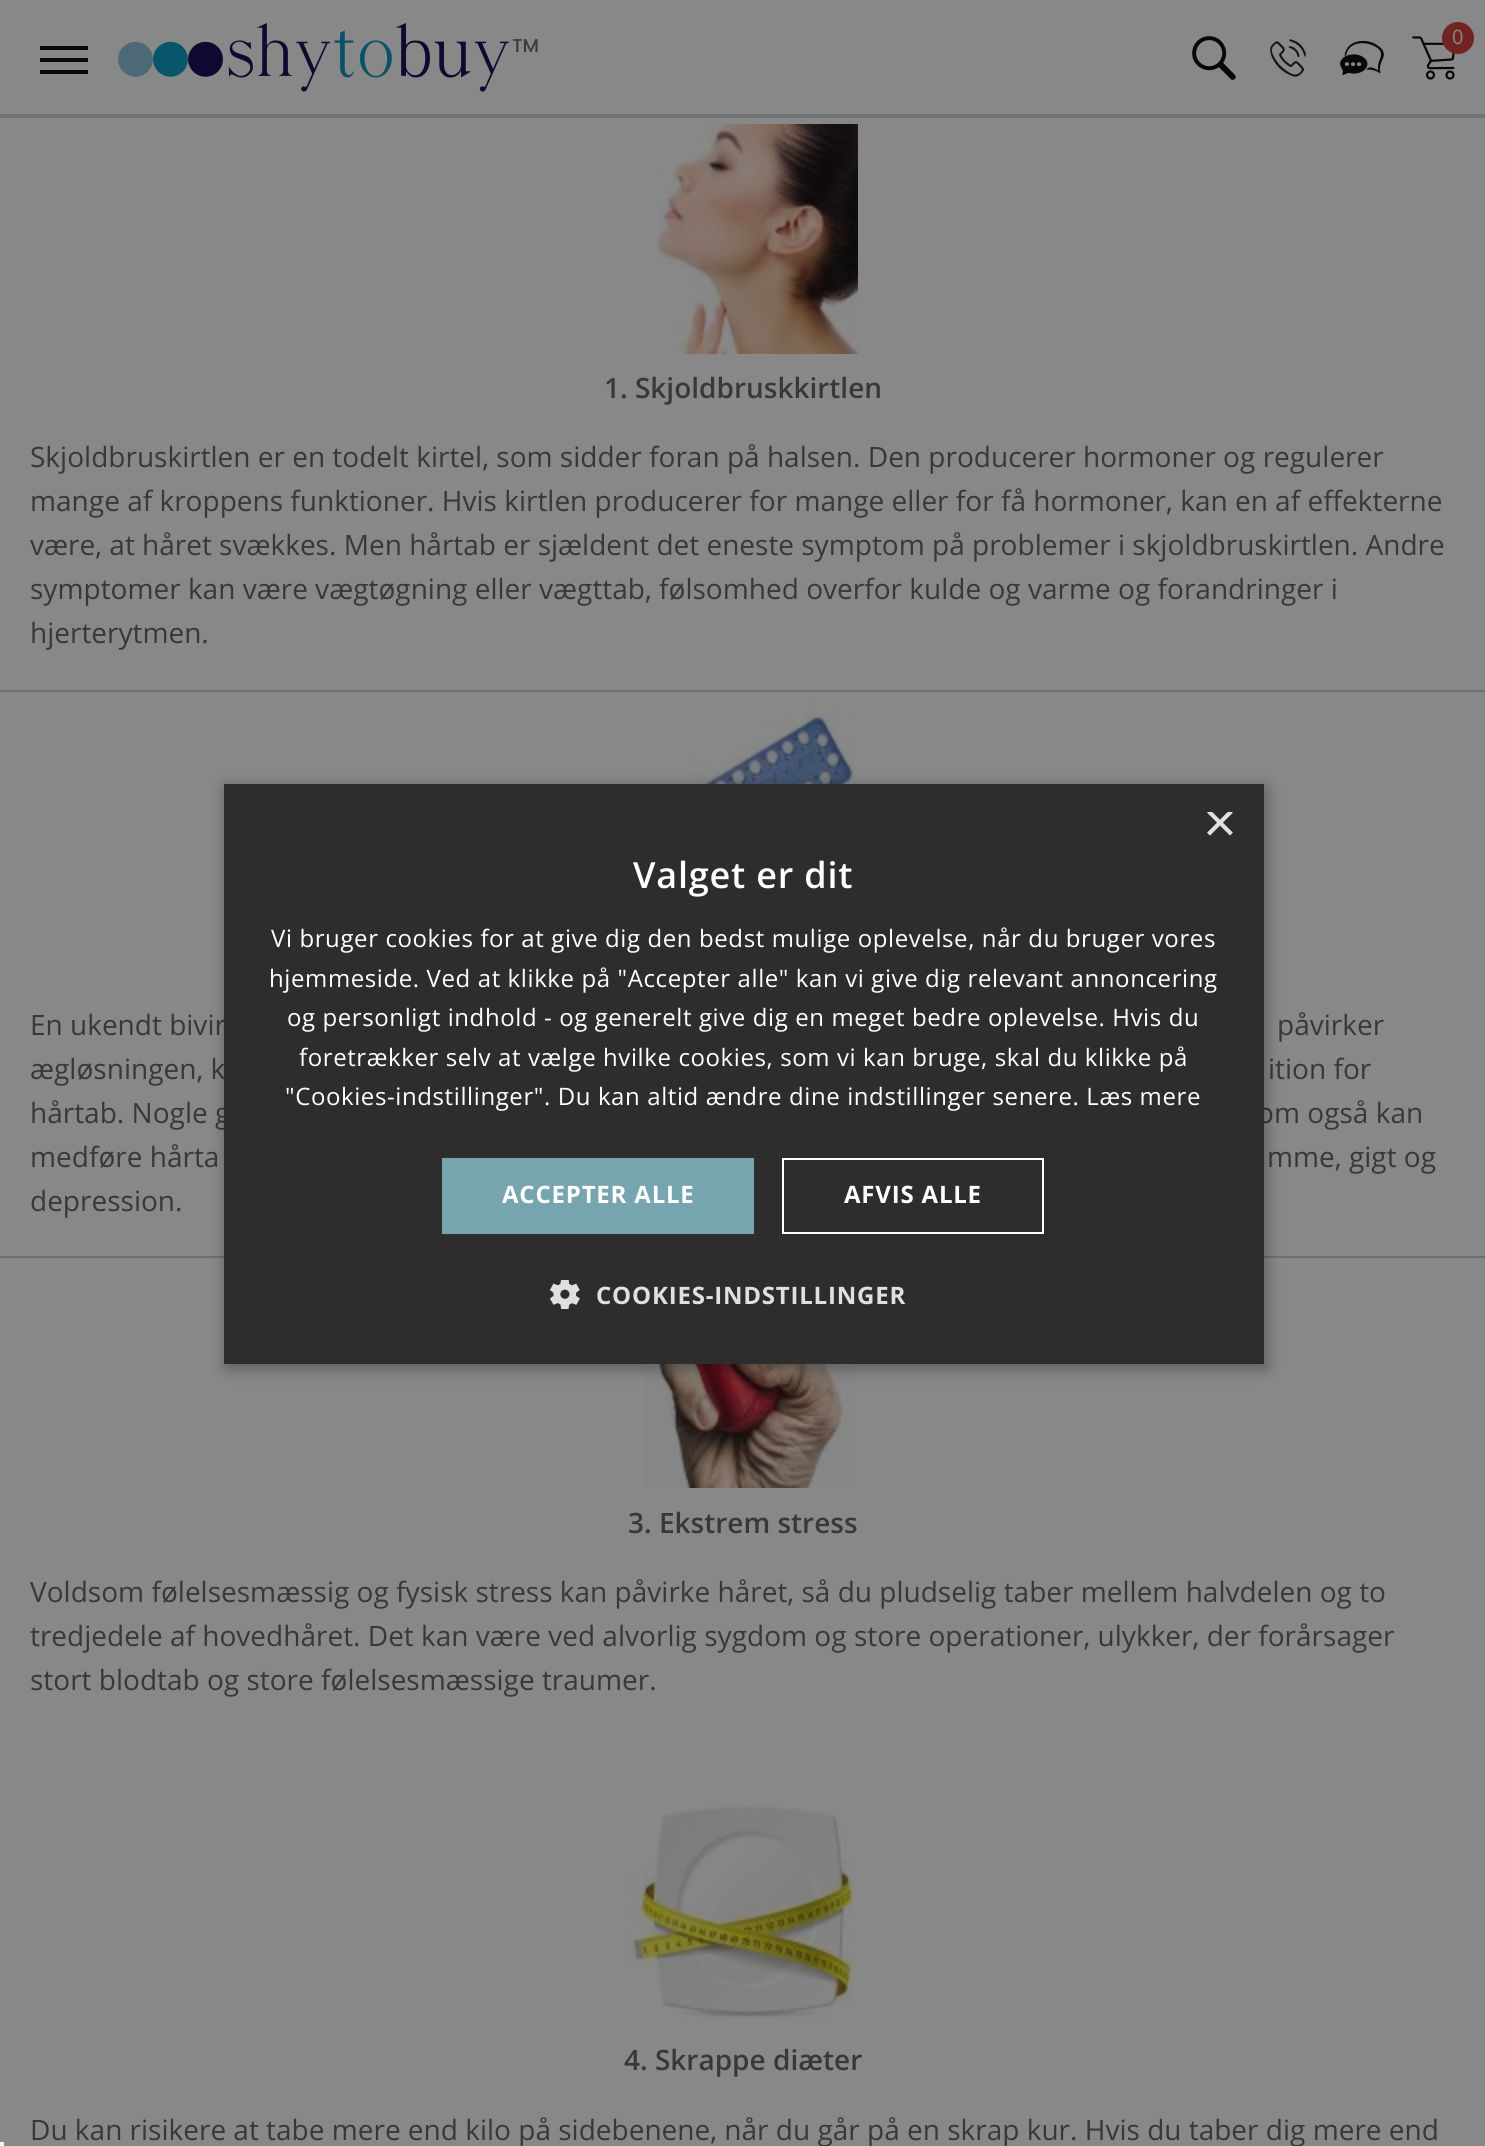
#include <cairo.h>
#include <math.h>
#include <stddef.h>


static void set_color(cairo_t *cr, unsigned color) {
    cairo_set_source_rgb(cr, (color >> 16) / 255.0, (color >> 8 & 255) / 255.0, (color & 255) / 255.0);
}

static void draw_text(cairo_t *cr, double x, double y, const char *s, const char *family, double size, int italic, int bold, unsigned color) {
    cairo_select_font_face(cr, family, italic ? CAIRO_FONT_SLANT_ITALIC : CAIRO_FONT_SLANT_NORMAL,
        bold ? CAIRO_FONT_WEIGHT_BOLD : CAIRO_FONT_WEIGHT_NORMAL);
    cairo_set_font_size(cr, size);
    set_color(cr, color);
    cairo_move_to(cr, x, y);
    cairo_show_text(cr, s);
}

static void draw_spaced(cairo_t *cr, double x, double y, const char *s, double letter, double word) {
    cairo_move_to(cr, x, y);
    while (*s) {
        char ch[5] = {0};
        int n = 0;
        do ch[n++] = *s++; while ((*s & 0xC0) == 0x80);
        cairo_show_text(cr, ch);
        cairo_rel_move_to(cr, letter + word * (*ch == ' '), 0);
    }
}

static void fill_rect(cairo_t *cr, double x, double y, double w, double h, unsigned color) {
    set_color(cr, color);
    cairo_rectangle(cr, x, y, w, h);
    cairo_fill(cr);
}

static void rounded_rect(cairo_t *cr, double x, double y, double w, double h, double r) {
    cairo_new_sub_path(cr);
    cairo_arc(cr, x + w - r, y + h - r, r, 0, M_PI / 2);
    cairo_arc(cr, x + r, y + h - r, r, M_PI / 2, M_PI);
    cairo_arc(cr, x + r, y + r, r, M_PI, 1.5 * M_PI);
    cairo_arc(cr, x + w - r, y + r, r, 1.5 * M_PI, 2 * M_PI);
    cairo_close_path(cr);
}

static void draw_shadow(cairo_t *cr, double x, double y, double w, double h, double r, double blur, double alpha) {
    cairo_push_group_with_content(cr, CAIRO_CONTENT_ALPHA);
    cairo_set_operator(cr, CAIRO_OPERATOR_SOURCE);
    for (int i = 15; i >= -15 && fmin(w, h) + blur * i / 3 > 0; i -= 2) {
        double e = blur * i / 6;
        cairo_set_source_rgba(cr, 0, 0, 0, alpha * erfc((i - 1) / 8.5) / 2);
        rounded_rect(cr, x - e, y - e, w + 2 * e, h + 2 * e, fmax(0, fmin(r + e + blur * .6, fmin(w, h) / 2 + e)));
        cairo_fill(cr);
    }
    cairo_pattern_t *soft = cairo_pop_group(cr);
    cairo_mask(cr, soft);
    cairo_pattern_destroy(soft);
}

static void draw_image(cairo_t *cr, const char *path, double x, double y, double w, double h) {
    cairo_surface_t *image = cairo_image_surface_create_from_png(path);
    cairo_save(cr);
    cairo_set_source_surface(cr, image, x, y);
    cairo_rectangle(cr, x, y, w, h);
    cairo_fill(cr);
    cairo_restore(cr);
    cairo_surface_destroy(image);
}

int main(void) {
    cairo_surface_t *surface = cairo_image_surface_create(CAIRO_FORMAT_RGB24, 1485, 2146);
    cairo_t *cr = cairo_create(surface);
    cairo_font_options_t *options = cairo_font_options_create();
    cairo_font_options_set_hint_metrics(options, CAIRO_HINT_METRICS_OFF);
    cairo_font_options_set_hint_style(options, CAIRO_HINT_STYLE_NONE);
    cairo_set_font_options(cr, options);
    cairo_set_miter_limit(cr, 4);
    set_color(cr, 0x888888);
    cairo_paint(cr);
    fill_rect(cr, 0, 114, 1485, 4, 0x707275);
    fill_rect(cr, 40, 58, 48, 4, 0x090909);
    fill_rect(cr, 40, 46, 48, 4, 0x090909);
    fill_rect(cr, 40, 70, 48, 4, 0x090909);
    draw_image(cr, "assets/img1.png", 118, 23, 420, 69);
    draw_image(cr, "assets/img2.png", 1192, 36, 44, 44);
    draw_image(cr, "assets/img3.png", 1270, 39, 36, 38);
    draw_image(cr, "assets/img4.png", 1340, 40, 44, 36);
    draw_image(cr, "assets/img5.png", 1412, 36, 43, 44);
    set_color(cr, 0x712421);
    cairo_arc(cr, 1458, 38, 16, 0, 2 * M_PI);
    cairo_fill(cr);
    draw_text(cr, 1452, 44, "0", "Open Sans", 20, 0, 0, 0x888888);
    fill_rect(cr, 0, 690, 1485, 2, 0x6F6F6F);
    draw_image(cr, "assets/img6.png", 657, 124, 201, 230);
    draw_text(cr, 604, 398, "1. Skjoldbruskkirtlen", "Open Sans SemiBold", 28, 0, 0, 0x383838);
    draw_text(cr, 30, 467, "Skjoldbruskirtlen er en todelt kirtel, som sidder foran på halsen. Den producerer hormoner og regulerer", "Open Sans", 28, 0, 0, 0x383838);
    draw_text(cr, 30, 511, "mange af kroppens funktioner. Hvis kirtlen producerer for mange eller for få hormoner, kan en af effekterne", "Open Sans", 28, 0, 0, 0x383838);
    draw_text(cr, 30, 555, "være, at håret svækkes. Men hårtab er sjældent det eneste symptom på problemer i skjoldbruskirtlen. Andre", "Open Sans", 28, 0, 0, 0x383838);
    draw_text(cr, 30, 599, "symptomer kan være vægtøgning eller vægttab, følsomhed overfor kulde og varme og forandringer i", "Open Sans", 28, 0, 0, 0x383838);
    draw_text(cr, 30, 643, "hjerterytmen.", "Open Sans", 28, 0, 0, 0x383838);
    fill_rect(cr, 0, 1256, 1485, 2, 0x6F6F6F);
    draw_image(cr, "assets/img7.png", 628, 700, 226, 84);
    draw_text(cr, 30, 1035, "En ukendt bivir", "Open Sans", 28, 0, 0, 0x383838);
    draw_text(cr, 1277, 1035, "påvirker", "Open Sans", 28, 0, 0, 0x383838);
    draw_text(cr, 30, 1079, "ægløsningen, k", "Open Sans", 28, 0, 0, 0x383838);
    draw_text(cr, 1268, 1079, "ition for", "Open Sans", 28, 0, 0, 0x383838);
    draw_text(cr, 30, 1123, "hårtab. Nogle g", "Open Sans", 28, 0, 0, 0x383838);
    draw_text(cr, 1257, 1123, "om også kan", "Open Sans", 28, 0, 0, 0x383838);
    draw_text(cr, 30, 1167, "medføre hårta", "Open Sans", 28, 0, 0, 0x383838);
    draw_text(cr, 1267, 1167, "mme, gigt og", "Open Sans", 28, 0, 0, 0x383838);
    draw_text(cr, 30, 1211, "depression.", "Open Sans", 28, 0, 0, 0x383838);
    draw_image(cr, "assets/img8.png", 644, 1364, 210, 124);
    draw_text(cr, 628, 1533, "3. Ekstrem stress", "Open Sans SemiBold", 28, 0, 0, 0x383838);
    draw_text(cr, 30, 1602, "Voldsom følelsesmæssig og fysisk stress kan påvirke håret, så du pludselig taber mellem halvdelen og to", "Open Sans", 28, 0, 0, 0x383838);
    draw_text(cr, 30, 1646, "tredjedele af hovedhåret. Det kan være ved alvorlig sygdom og store operationer, ulykker, der forårsager", "Open Sans", 28, 0, 0, 0x383838);
    draw_text(cr, 30, 1690, "stort blodtab og store følelsesmæssige traumer.", "Open Sans", 28, 0, 0, 0x383838);
    draw_image(cr, "assets/img9.png", 628, 1806, 227, 214);
    draw_text(cr, 624, 2070, "4. Skrappe diæter", "Open Sans SemiBold", 28, 0, 0, 0x383838);
    draw_text(cr, 30, 2140, "Du kan risikere at tabe mere end kilo på sidebenene, når du går på en skrap kur. Hvis du taber dig mere end", "Open Sans", 28, 0, 0, 0x383838);
    set_color(cr, 0x000000);
    draw_shadow(cr, 226, 788, 1040, 580, 0, 8, 0.35);
    fill_rect(cr, 224, 784, 1040, 580, 0x2D2D2D);
    cairo_save(cr);
    cairo_rectangle(cr, 1204, 812, 30, 30);
    cairo_clip(cr);
    draw_text(cr, 1203, 842, "×", "Liberation Sans", 58, 0, 0, 0xE0E0E0);
    cairo_restore(cr);
    cairo_select_font_face(cr, "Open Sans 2 SemiBold", CAIRO_FONT_SLANT_NORMAL, CAIRO_FONT_WEIGHT_NORMAL);
    cairo_set_font_size(cr, 36);
    set_color(cr, 0xFFFFFF);
    draw_spaced(cr, 633, 888, "Valget er dit", 0.8, 0);
    cairo_select_font_face(cr, "Open Sans 2", CAIRO_FONT_SLANT_NORMAL, CAIRO_FONT_WEIGHT_NORMAL);
    cairo_set_font_size(cr, 24);
    draw_spaced(cr, 271, 947, "Vi bruger cookies for at give dig den bedst mulige oplevelse, når du bruger vores", 0.6, 0);
    draw_spaced(cr, 269, 987, "hjemmeside. Ved at klikke på \"Accepter alle\" kan vi give dig relevant annoncering", 0.6, 0);
    draw_spaced(cr, 287, 1026, "og personligt indhold - og generelt give dig en meget bedre oplevelse. Hvis du", 0.6, 0);
    draw_spaced(cr, 299, 1066, "foretrækker selv at vælge hvilke cookies, som vi kan bruge, skal du klikke på", 0.6, 0);
    draw_spaced(cr, 285, 1105, "\"Cookies-indstillinger\". Du kan altid ændre dine indstillinger senere. Læs mere", 0.6, 0);
    fill_rect(cr, 442, 1158, 312, 76, 0x76A5AF);
    cairo_select_font_face(cr, "Open Sans", CAIRO_FONT_SLANT_NORMAL, CAIRO_FONT_WEIGHT_BOLD);
    set_color(cr, 0xFFFFFF);
    draw_spaced(cr, 502, 1203, "ACCEPTER ALLE", 0.8, 0);
    cairo_rectangle(cr, 783, 1159, 260, 74);
    cairo_stroke(cr);
    draw_spaced(cr, 844, 1203, "AFVIS ALLE", 0.8, 0);
    draw_image(cr, "assets/img10.png", 550, 1280, 30, 29);
    set_color(cr, 0xE0E0E0);
    draw_spaced(cr, 596, 1304, "COOKIES-INDSTILLINGER", 0.8, 0);
    fill_rect(cr, 0, 2142, 4, 4, 0xF5F5F5);
    cairo_surface_write_to_png(surface, "output.png");
    cairo_font_options_destroy(options);
    cairo_destroy(cr);
    cairo_surface_destroy(surface);
    return 0;
}
